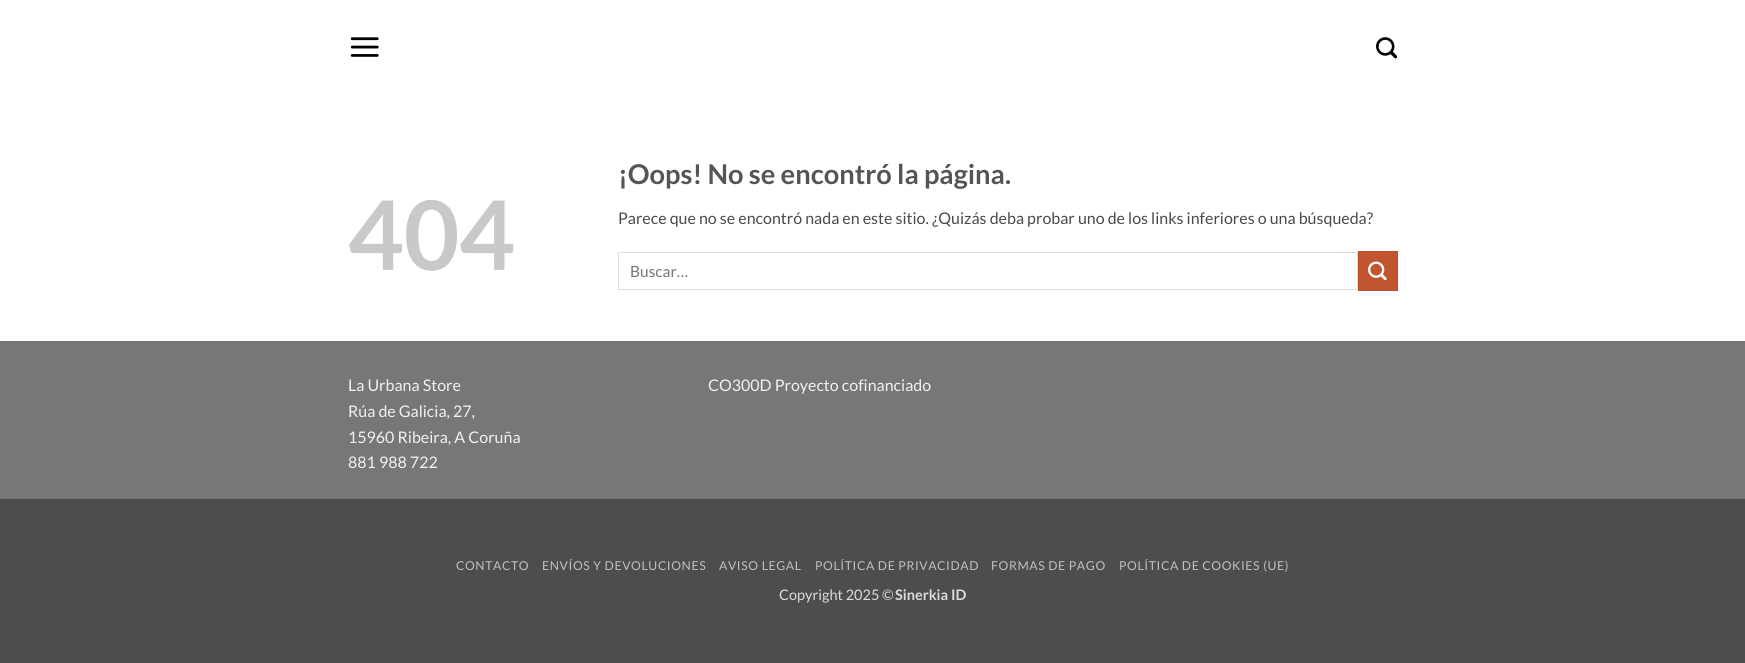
#include <cairo.h>
#include <math.h>
#include <stddef.h>


static void set_color(cairo_t *cr, unsigned color) {
    cairo_set_source_rgb(cr, (color >> 16) / 255.0, (color >> 8 & 255) / 255.0, (color & 255) / 255.0);
}

static void draw_text(cairo_t *cr, double x, double y, const char *s, const char *family, double size, int italic, int bold, unsigned color) {
    cairo_select_font_face(cr, family, italic ? CAIRO_FONT_SLANT_ITALIC : CAIRO_FONT_SLANT_NORMAL,
        bold ? CAIRO_FONT_WEIGHT_BOLD : CAIRO_FONT_WEIGHT_NORMAL);
    cairo_set_font_size(cr, size);
    set_color(cr, color);
    cairo_move_to(cr, x, y);
    cairo_show_text(cr, s);
}

static void draw_spaced(cairo_t *cr, double x, double y, const char *s, double letter, double word) {
    cairo_move_to(cr, x, y);
    while (*s) {
        char ch[5] = {0};
        int n = 0;
        do ch[n++] = *s++; while ((*s & 0xC0) == 0x80);
        cairo_show_text(cr, ch);
        cairo_rel_move_to(cr, letter + word * (*ch == ' '), 0);
    }
}

static void fill_rect(cairo_t *cr, double x, double y, double w, double h, unsigned color) {
    set_color(cr, color);
    cairo_rectangle(cr, x, y, w, h);
    cairo_fill(cr);
}

static void draw_image(cairo_t *cr, const char *path, double x, double y, double w, double h) {
    cairo_surface_t *image = cairo_image_surface_create_from_png(path);
    cairo_save(cr);
    cairo_set_source_surface(cr, image, x, y);
    cairo_rectangle(cr, x, y, w, h);
    cairo_fill(cr);
    cairo_restore(cr);
    cairo_surface_destroy(image);
}

int main(void) {
    cairo_surface_t *surface = cairo_image_surface_create(CAIRO_FORMAT_RGB24, 1745, 663);
    cairo_t *cr = cairo_create(surface);
    cairo_font_options_t *options = cairo_font_options_create();
    cairo_font_options_set_hint_metrics(options, CAIRO_HINT_METRICS_OFF);
    cairo_font_options_set_hint_style(options, CAIRO_HINT_STYLE_NONE);
    cairo_set_font_options(cr, options);
    cairo_set_miter_limit(cr, 4);
    set_color(cr, 0x4D4D4D);
    cairo_paint(cr);
    fill_rect(cr, 0, 0, 1745, 341, 0xFFFFFF);
    draw_image(cr, "assets/img1.png", 350, 37, 29, 20);
    draw_image(cr, "assets/img2.png", 1376, 37, 22, 22);
    draw_text(cr, 348, 270, "404", "Lato", 96, 0, 1, 0xC9C9C9);
    draw_text(cr, 618, 184, "¡Oops! No se encontró la página.", "Lato", 27.25, 0, 1, 0x555555);
    draw_text(cr, 618, 224, "Parece que no se encontró nada en este sitio. ¿Quizás deba probar uno de los links inferiores o una búsqueda?", "Lato", 16, 0, 0, 0x4A4A4A);
    cairo_rectangle(cr, 618.5, 252.5, 739, 37);
    set_color(cr, 0xDDDDDD);
    cairo_set_line_width(cr, 1);
    cairo_stroke(cr);
    draw_text(cr, 630, 277, "Buscar…", "Lato", 15.5, 0, 0, 0x757575);
    set_color(cr, 0xC05530);
    cairo_rectangle(cr, 1358.5, 251.5, 39, 39);
    cairo_fill_preserve(cr);
    set_color(cr, 0xB6512E);
    cairo_stroke(cr);
    draw_image(cr, "assets/img3.png", 1368, 261, 19, 20);
    fill_rect(cr, 0, 342, 1745, 157, 0x777777);
    fill_rect(cr, 0, 341, 1745, 1, 0x717171);
    draw_text(cr, 348, 391, "La Urbana Store", "Lato", 16, 0, 0, 0xF1F1F1);
    draw_text(cr, 348, 417, "Rúa de Galicia, 27,", "Lato", 16, 0, 0, 0xF1F1F1);
    draw_text(cr, 348, 443, "15960 Ribeira, A Coruña", "Lato", 16, 0, 0, 0xF1F1F1);
    draw_text(cr, 348, 468, "881 988 722", "Lato", 16, 0, 0, 0xF1F1F1);
    draw_text(cr, 708, 391, "CO300D Proyecto cofinanciado", "Lato", 16, 0, 0, 0xF1F1F1);
    cairo_set_font_size(cr, 12.25);
    set_color(cr, 0xBFBFBF);
    draw_spaced(cr, 456, 570, "CONTACTO", 0.6, 0);
    draw_spaced(cr, 542, 570, "ENVÍOS Y DEVOLUCIONES", 0.6, 0);
    draw_spaced(cr, 719, 570, "AVISO LEGAL", 0.6, 0);
    draw_spaced(cr, 815, 570, "POLÍTICA DE PRIVACIDAD", 0.6, 0);
    draw_spaced(cr, 991, 570, "FORMAS DE PAGO", 0.6, 0);
    draw_spaced(cr, 1119, 570, "POLÍTICA DE COOKIES (UE)", 0.6, 0);
    draw_text(cr, 779, 600, "Copyright 2025 ©", "Lato", 14.5, 0, 0, 0xDBDBDB);
    draw_text(cr, 895, 600, "Sinerkia ID", "Lato", 14.5, 0, 1, 0xDBDBDB);
    cairo_surface_write_to_png(surface, "output.png");
    cairo_font_options_destroy(options);
    cairo_destroy(cr);
    cairo_surface_destroy(surface);
    return 0;
}
